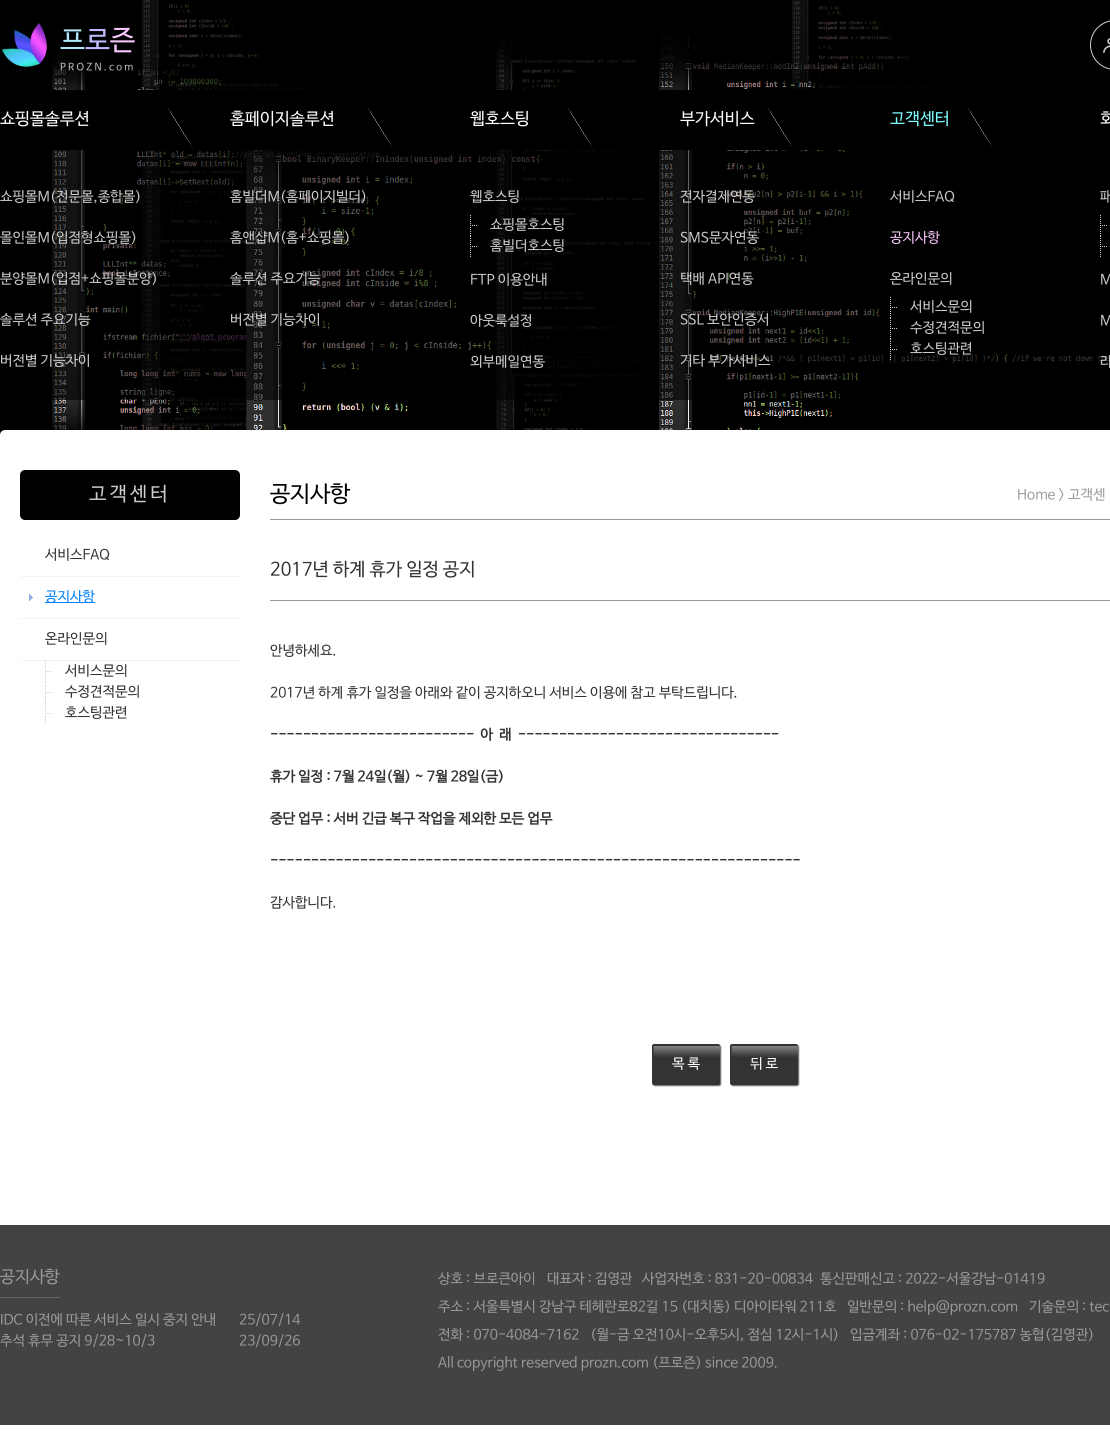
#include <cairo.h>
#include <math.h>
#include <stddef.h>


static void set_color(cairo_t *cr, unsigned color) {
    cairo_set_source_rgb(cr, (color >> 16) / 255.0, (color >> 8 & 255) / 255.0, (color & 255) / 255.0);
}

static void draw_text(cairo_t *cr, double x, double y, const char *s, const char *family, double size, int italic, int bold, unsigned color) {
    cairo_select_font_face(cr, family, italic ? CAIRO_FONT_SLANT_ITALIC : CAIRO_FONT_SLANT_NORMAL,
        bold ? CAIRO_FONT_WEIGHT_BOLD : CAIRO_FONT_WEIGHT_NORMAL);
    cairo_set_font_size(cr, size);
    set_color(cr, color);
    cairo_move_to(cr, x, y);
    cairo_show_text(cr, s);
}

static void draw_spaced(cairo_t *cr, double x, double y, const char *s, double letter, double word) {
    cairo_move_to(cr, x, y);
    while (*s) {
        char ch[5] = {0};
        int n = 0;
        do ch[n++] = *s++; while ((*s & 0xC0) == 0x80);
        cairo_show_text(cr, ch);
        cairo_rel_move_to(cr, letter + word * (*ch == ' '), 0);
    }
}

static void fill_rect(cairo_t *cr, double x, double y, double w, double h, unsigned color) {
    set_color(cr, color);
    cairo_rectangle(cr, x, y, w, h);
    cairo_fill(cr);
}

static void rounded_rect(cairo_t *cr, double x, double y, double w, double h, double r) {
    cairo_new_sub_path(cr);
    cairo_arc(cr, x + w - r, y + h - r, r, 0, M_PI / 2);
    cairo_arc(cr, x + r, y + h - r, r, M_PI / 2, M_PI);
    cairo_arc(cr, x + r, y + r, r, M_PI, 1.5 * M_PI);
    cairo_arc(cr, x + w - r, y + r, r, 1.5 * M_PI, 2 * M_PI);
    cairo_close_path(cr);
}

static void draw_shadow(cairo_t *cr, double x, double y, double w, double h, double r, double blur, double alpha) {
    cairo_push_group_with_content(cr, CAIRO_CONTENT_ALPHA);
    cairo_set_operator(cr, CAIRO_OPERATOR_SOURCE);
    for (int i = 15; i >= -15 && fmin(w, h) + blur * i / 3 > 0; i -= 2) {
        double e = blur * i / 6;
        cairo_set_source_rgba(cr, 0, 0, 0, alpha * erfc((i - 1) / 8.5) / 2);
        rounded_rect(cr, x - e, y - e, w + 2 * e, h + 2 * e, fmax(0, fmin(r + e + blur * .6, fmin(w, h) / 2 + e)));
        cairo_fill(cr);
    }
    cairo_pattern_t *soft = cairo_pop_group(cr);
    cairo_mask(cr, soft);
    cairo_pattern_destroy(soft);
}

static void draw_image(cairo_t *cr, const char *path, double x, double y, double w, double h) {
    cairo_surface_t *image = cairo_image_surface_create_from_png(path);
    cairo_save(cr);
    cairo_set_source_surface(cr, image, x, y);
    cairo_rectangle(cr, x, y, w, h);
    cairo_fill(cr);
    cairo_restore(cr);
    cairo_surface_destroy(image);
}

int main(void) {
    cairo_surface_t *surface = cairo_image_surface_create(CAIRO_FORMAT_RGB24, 1110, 1444);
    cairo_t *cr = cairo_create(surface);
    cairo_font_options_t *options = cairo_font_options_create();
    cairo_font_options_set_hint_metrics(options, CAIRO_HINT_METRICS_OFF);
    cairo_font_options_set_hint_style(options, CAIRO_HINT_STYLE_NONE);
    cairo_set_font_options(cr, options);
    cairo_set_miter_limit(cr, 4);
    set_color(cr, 0xFFFFFF);
    cairo_paint(cr);
    draw_image(cr, "assets/img1.png", 0, 0, 1110, 435);
    draw_image(cr, "assets/img2.png", 2, 23, 46, 44);
    draw_text(cr, 60, 49, "프", "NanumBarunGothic", 28, 0, 0, 0xB0E7FD);
    draw_text(cr, 85, 49, "로", "NanumBarunGothic", 28, 0, 0, 0xBEBCFF);
    draw_text(cr, 110, 49, "즌", "NanumBarunGothic", 28, 0, 0, 0xF9C8FC);
    cairo_set_font_size(cr, 10);
    set_color(cr, 0xCCCCCC);
    draw_spaced(cr, 60, 70, "PROZN.com", 2.25, 0);
    rounded_rect(cr, 1090.5, 20.5, 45, 49, 24.5);
    cairo_set_line_width(cr, 1);
    cairo_stroke(cr);
    draw_image(cr, "assets/img3.png", 1103, 38, 7, 15);
    fill_rect(cr, 52, 90, 900, 60, 0x000000);
    draw_image(cr, "assets/img4.png", 167, 107, 27, 42);
    draw_text(cr, 0, 124, "쇼핑몰솔루션", "NanumBarunGothic", 16.75, 0, 0, 0xFFFFFF);
    cairo_set_source_rgba(cr, 0, 0, 0, 0.6);
    cairo_rectangle(cr, 52, 150, 1058, 250);
    cairo_fill(cr);
    draw_text(cr, 0, 201, "쇼핑몰M(전문몰,종합몰)", "NanumBarunGothic", 14, 0, 0, 0xCCCCCC);
    draw_text(cr, 0, 242, "몰인몰M(입점형쇼핑몰)", "NanumBarunGothic", 14, 0, 0, 0xCCCCCC);
    draw_text(cr, 0, 283, "분양몰M(입점+쇼핑몰분양)", "NanumBarunGothic", 14, 0, 0, 0xCCCCCC);
    draw_text(cr, 0, 324, "솔루션 주요기능", "NanumBarunGothic", 14, 0, 0, 0xCCCCCC);
    draw_text(cr, 0, 365, "버전별 기능차이", "NanumBarunGothic", 14, 0, 0, 0xCCCCCC);
    draw_image(cr, "assets/img4.png", 367, 107, 27, 42);
    draw_text(cr, 230, 124, "홈페이지솔루션", "NanumBarunGothic", 16.75, 0, 0, 0xFFFFFF);
    draw_text(cr, 230, 201, "홈빌더M(홈페이지빌더)", "NanumBarunGothic", 14, 0, 0, 0xCCCCCC);
    draw_text(cr, 230, 242, "홈앤샵M(홈+쇼핑몰)", "NanumBarunGothic", 14, 0, 0, 0xCCCCCC);
    draw_text(cr, 230, 283, "솔루션 주요기능", "NanumBarunGothic", 14, 0, 0, 0xCCCCCC);
    draw_text(cr, 230, 324, "버전별 기능차이", "NanumBarunGothic", 14, 0, 0, 0xCCCCCC);
    draw_image(cr, "assets/img4.png", 567, 107, 27, 42);
    draw_text(cr, 470, 124, "웹호스팅", "NanumBarunGothic", 16.75, 0, 0, 0xFFFFFF);
    draw_text(cr, 470, 201, "웹호스팅", "NanumBarunGothic", 14, 0, 0, 0xCCCCCC);
    draw_image(cr, "assets/img5.png", 470, 215, 7, 21);
    draw_text(cr, 490, 229, "쇼핑몰호스팅", "NanumBarunGothic", 14, 0, 0, 0xCCCCCC);
    draw_image(cr, "assets/img5.png", 470, 236, 7, 21);
    draw_text(cr, 490, 250, "홈빌더호스팅", "NanumBarunGothic", 14, 0, 0, 0xCCCCCC);
    draw_text(cr, 470, 284, "FTP 이용안내", "NanumBarunGothic", 14, 0, 0, 0xCCCCCC);
    draw_text(cr, 470, 325, "아웃룩설정", "NanumBarunGothic", 14, 0, 0, 0xCCCCCC);
    draw_text(cr, 470, 366, "외부메일연동", "NanumBarunGothic", 14, 0, 0, 0xCCCCCC);
    draw_image(cr, "assets/img4.png", 767, 107, 27, 42);
    draw_text(cr, 680, 124, "부가서비스", "NanumBarunGothic", 16.75, 0, 0, 0xFFFFFF);
    draw_text(cr, 680, 201, "전자결제연동", "NanumBarunGothic", 14, 0, 0, 0xCCCCCC);
    draw_text(cr, 680, 242, "SMS문자연동", "NanumBarunGothic", 14, 0, 0, 0xCCCCCC);
    draw_text(cr, 680, 283, "택배 API연동", "NanumBarunGothic", 14, 0, 0, 0xCCCCCC);
    draw_text(cr, 680, 324, "SSL 보안인증서", "NanumBarunGothic", 14, 0, 0, 0xCCCCCC);
    draw_text(cr, 680, 365, "기타 부가서비스", "NanumBarunGothic", 14, 0, 0, 0xCCCCCC);
    draw_image(cr, "assets/img4.png", 967, 107, 27, 42);
    draw_text(cr, 890, 124, "고객센터", "NanumBarunGothic", 16.75, 0, 0, 0x80FFFF);
    draw_text(cr, 890, 201, "서비스FAQ", "NanumBarunGothic", 14, 0, 0, 0xCCCCCC);
    draw_text(cr, 890, 242, "공지사항", "NanumBarunGothic", 14, 0, 0, 0xF9C8FC);
    draw_text(cr, 890, 283, "온라인문의", "NanumBarunGothic", 14, 0, 0, 0xCCCCCC);
    draw_image(cr, "assets/img5.png", 890, 297, 7, 21);
    draw_text(cr, 910, 311, "서비스문의", "NanumBarunGothic", 14, 0, 0, 0xCCCCCC);
    draw_image(cr, "assets/img5.png", 890, 318, 7, 21);
    draw_text(cr, 910, 332, "수정견적문의", "NanumBarunGothic", 14, 0, 0, 0xCCCCCC);
    draw_image(cr, "assets/img6.png", 890, 339, 7, 21);
    draw_text(cr, 910, 353, "호스팅관련", "NanumBarunGothic", 14, 0, 0, 0xCCCCCC);
    draw_text(cr, 1100, 124, "회", "NanumBarunGothic", 16.75, 0, 0, 0xFFFFFF);
    draw_text(cr, 1100, 201, "패", "NanumBarunGothic", 14, 0, 0, 0xCCCCCC);
    draw_image(cr, "assets/img5.png", 1100, 215, 7, 21);
    draw_image(cr, "assets/img5.png", 1100, 236, 7, 21);
    draw_text(cr, 1100, 284, "M", "NanumBarunGothic", 14, 0, 0, 0xCCCCCC);
    draw_text(cr, 1100, 325, "M", "NanumBarunGothic", 14, 0, 0, 0xCCCCCC);
    draw_text(cr, 1100, 366, "라", "NanumBarunGothic", 14, 0, 0, 0xCCCCCC);
    set_color(cr, 0xFFFFFF);
    rounded_rect(cr, 0, 430, 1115, 745, 5);
    cairo_fill(cr);
    set_color(cr, 0x000000);
    rounded_rect(cr, 20, 470, 220, 50, 5);
    cairo_fill(cr);
    cairo_set_font_size(cr, 19.5);
    set_color(cr, 0xCCCCCC);
    draw_spaced(cr, 89, 500, "고객센터", 3, 0);
    fill_rect(cr, 20, 576, 220, 1, 0xF4F4F4);
    draw_text(cr, 45, 559, "서비스FAQ", "NanumBarunGothic", 14, 0, 0, 0x333333);
    draw_image(cr, "assets/img7.png", 29, 594, 4, 7);
    fill_rect(cr, 20, 618, 220, 1, 0xF4F4F4);
    fill_rect(cr, 45, 602, 50, 1, 0x0080FF);
    draw_text(cr, 45, 601, "공지사항", "NanumBarunGothic", 14, 0, 0, 0x0080FF);
    fill_rect(cr, 20, 660, 220, 1, 0xF4F4F4);
    draw_text(cr, 45, 643, "온라인문의", "NanumBarunGothic", 14, 0, 0, 0x333333);
    draw_image(cr, "assets/img8.png", 45, 661, 7, 21);
    draw_text(cr, 65, 675, "서비스문의", "NanumBarunGothic", 14, 0, 0, 0x333333);
    draw_image(cr, "assets/img8.png", 45, 682, 7, 21);
    draw_text(cr, 65, 696, "수정견적문의", "NanumBarunGothic", 14, 0, 0, 0x333333);
    draw_image(cr, "assets/img8.png", 45, 703, 7, 21);
    draw_text(cr, 65, 717, "호스팅관련", "NanumBarunGothic", 14, 0, 0, 0x333333);
    fill_rect(cr, 270, 519, 840, 1, 0x999999);
    draw_text(cr, 270, 501, "공지사항", "NanumBarunGothic", 22.5, 0, 0, 0x000000);
    draw_text(cr, 1017, 499, "Home > 고객센", "NanumBarunGothic", 14, 0, 0, 0x999999);
    fill_rect(cr, 270, 600, 840, 1, 0x999999);
    draw_text(cr, 270, 575, "2017년 하계 휴가 일정 공지", "NanumBarunGothic", 18.25, 0, 0, 0x333333);
    draw_text(cr, 270, 655, "안녕하세요.", "NanumBarunGothic", 14, 0, 0, 0x333333);
    draw_text(cr, 270, 697, "2017년 하계 휴가 일정을 아래와 같이 공지하오니 서비스 이용에 참고 부탁드립니다.", "NanumBarunGothic", 14, 0, 0, 0x333333);
    draw_text(cr, 270, 739, "-------------------------  아  래  --------------------------------", "NanumBarunGothic", 14, 0, 1, 0x333333);
    draw_text(cr, 270, 781, "휴가 일정 : 7월 24일(월) ~ 7월 28일(금)", "NanumBarunGothic", 14, 0, 1, 0x333333);
    draw_text(cr, 270, 823, "중단 업무 : 서버 긴급 복구 작업을 제외한 모든 업무", "NanumBarunGothic", 14, 0, 1, 0x333333);
    draw_text(cr, 270, 865, "-----------------------------------------------------------------", "NanumBarunGothic", 14, 0, 1, 0x333333);
    draw_text(cr, 270, 907, "감사합니다.", "NanumBarunGothic", 14, 0, 0, 0x333333);
    set_color(cr, 0x666666);
    draw_shadow(cr, 653, 1045, 68, 41, 2, 0.5, 1);
    set_color(cr, 0x333333);
    rounded_rect(cr, 652, 1044, 68, 41, 2);
    cairo_fill(cr);
    draw_image(cr, "assets/img9.png", 653, 1046, 67, 11);
    draw_text(cr, 672, 1068, "목 록", "NanumBarunGothic", 14, 0, 0, 0xFFFFFF);
    set_color(cr, 0x666666);
    draw_shadow(cr, 731, 1045, 68, 41, 2, 0.5, 1);
    set_color(cr, 0x333333);
    rounded_rect(cr, 730, 1044, 68, 41, 2);
    cairo_fill(cr);
    draw_image(cr, "assets/img9.png", 731, 1046, 67, 11);
    draw_text(cr, 750, 1068, "뒤 로", "NanumBarunGothic", 14, 0, 0, 0xFFFFFF);
    fill_rect(cr, 0, 1225, 1110, 200, 0x434343);
    draw_text(cr, 0, 1282, "공지사항", "NanumBarunGothic", 16.75, 0, 0, 0x999999);
    fill_rect(cr, 0, 1297, 60, 1, 0x666666);
    draw_text(cr, 0, 1324, "IDC 이전에 따른 서비스 일시 중지 안내", "NanumBarunGothic", 14, 0, 0, 0x999999);
    draw_text(cr, 239, 1324, "25/07/14", "NanumBarunGothic", 14, 0, 0, 0x999999);
    draw_text(cr, 0, 1345, "추석 휴무 공지 9/28~10/3", "NanumBarunGothic", 14, 0, 0, 0x999999);
    draw_text(cr, 239, 1345, "23/09/26", "NanumBarunGothic", 14, 0, 0, 0x999999);
    draw_text(cr, 438, 1283, "상호 : 브로큰아이", "NanumBarunGothic", 14, 0, 0, 0x999999);
    draw_text(cr, 547, 1283, "대표자 : 김영관", "NanumBarunGothic", 14, 0, 0, 0x999999);
    draw_text(cr, 642, 1283, "사업자번호 : 831-20-00834", "NanumBarunGothic", 14, 0, 0, 0x999999);
    draw_text(cr, 820, 1283, "통신판매신고 : 2022-서울강남-01419", "NanumBarunGothic", 14, 0, 0, 0x999999);
    draw_text(cr, 438, 1311, "주소 : 서울특별시 강남구 테헤란로82길 15 (대치동) 디아이타워 211호", "NanumBarunGothic", 14, 0, 0, 0x999999);
    draw_text(cr, 847, 1311, "일반문의 : help@prozn.com", "NanumBarunGothic", 14, 0, 0, 0x999999);
    draw_text(cr, 1029, 1311, "기술문의 : tec", "NanumBarunGothic", 14, 0, 0, 0x999999);
    draw_text(cr, 438, 1339, "전화 : 070-4084-7162", "NanumBarunGothic", 14, 0, 0, 0x999999);
    draw_text(cr, 590, 1339, "(월-금 오전10시-오후5시, 점심 12시-1시)", "NanumBarunGothic", 14, 0, 0, 0x999999);
    draw_text(cr, 850, 1339, "입금계좌 : 076-02-175787 농협(김영관)", "NanumBarunGothic", 14, 0, 0, 0x999999);
    draw_text(cr, 438, 1367, "All copyright reserved prozn.com (프로즌) since 2009.", "NanumBarunGothic", 14, 0, 0, 0x999999);
    cairo_surface_write_to_png(surface, "output.png");
    cairo_font_options_destroy(options);
    cairo_destroy(cr);
    cairo_surface_destroy(surface);
    return 0;
}
